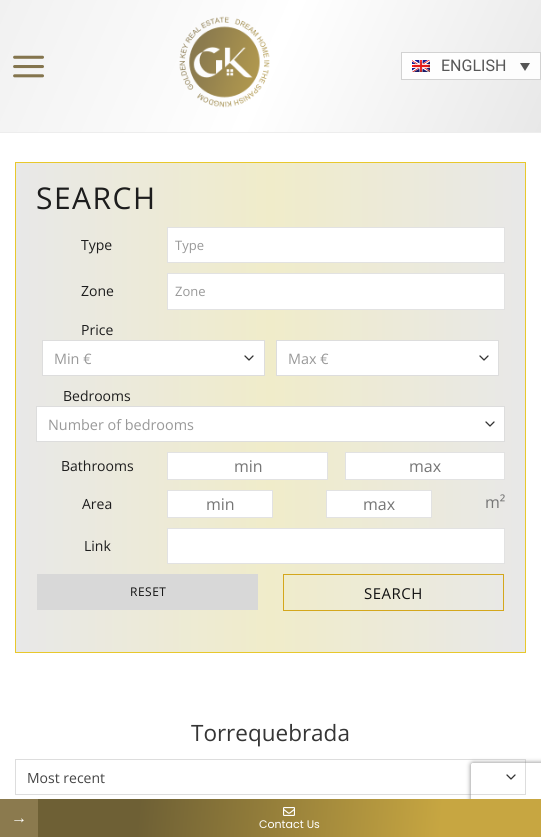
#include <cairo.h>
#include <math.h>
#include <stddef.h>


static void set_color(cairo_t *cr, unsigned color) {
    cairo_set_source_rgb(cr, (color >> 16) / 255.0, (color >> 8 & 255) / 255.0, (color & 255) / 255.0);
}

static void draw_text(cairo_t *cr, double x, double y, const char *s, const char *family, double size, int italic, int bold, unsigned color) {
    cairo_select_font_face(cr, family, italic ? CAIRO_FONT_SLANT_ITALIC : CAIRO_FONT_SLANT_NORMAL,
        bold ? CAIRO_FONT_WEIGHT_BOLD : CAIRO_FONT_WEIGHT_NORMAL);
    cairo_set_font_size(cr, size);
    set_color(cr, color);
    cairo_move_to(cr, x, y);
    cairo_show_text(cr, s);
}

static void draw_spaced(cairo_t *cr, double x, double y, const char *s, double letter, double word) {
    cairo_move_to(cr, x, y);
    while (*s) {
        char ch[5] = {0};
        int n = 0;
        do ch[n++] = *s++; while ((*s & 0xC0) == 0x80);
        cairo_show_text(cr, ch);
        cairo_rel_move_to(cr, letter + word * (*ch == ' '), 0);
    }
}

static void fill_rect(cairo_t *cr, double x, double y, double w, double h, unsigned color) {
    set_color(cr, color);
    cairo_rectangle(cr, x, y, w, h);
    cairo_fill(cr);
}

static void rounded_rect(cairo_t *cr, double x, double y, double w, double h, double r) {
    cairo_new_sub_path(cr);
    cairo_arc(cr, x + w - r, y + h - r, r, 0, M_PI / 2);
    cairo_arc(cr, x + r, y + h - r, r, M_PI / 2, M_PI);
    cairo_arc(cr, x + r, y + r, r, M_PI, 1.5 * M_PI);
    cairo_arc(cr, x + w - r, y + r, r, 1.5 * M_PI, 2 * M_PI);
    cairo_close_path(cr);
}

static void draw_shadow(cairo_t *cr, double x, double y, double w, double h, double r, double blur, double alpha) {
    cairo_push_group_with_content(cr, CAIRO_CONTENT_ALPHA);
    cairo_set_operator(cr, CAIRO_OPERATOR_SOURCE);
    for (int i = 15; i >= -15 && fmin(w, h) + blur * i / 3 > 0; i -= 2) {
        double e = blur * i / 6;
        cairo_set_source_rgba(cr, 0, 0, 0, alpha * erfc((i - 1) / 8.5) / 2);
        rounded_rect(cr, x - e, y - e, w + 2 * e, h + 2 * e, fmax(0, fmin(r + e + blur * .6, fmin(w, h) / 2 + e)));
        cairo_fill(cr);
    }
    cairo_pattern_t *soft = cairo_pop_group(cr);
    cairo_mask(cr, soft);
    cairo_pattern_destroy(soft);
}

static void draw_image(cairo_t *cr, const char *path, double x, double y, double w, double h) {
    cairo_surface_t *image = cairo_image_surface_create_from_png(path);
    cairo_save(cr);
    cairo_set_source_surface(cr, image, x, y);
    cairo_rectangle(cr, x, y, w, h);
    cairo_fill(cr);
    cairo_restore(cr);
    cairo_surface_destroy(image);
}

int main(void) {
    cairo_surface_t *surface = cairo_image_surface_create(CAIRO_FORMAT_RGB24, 541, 837);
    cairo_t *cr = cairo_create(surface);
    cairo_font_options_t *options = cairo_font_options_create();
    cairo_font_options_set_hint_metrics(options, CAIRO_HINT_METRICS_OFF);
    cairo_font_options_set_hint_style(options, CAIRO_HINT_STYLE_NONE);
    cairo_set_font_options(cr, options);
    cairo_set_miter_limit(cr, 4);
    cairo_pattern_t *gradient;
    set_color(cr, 0xFFFFFF);
    cairo_paint(cr);
    gradient = cairo_pattern_create_linear(20, -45, 521, 177);
    cairo_pattern_add_color_stop_rgba(gradient, 0, 0.945, 0.945, 0.945, 1);
    cairo_pattern_add_color_stop_rgba(gradient, 0.5, 1, 1, 1, 1);
    cairo_pattern_add_color_stop_rgba(gradient, 1, 0.91, 0.91, 0.91, 1);
    cairo_set_source(cr, gradient);
    cairo_pattern_destroy(gradient);
    cairo_rectangle(cr, 0, 0, 541, 132);
    cairo_fill(cr);
    gradient = cairo_pattern_create_linear(20, -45, 521, 177);
    cairo_pattern_add_color_stop_rgba(gradient, 0, 0.996, 0.996, 0.996, 1);
    cairo_pattern_add_color_stop_rgba(gradient, 0.5, 1, 1, 1, 1);
    cairo_pattern_add_color_stop_rgba(gradient, 1, 0.992, 0.992, 0.992, 1);
    cairo_set_source(cr, gradient);
    cairo_pattern_destroy(gradient);
    cairo_rectangle(cr, 402, 53, 138, 26);
    cairo_fill(cr);
    draw_image(cr, "assets/img1.png", 13, 55, 31, 23);
    draw_image(cr, "assets/img2.png", 179, 16, 91, 92);
    cairo_rectangle(cr, 401.5, 52.5, 139, 27);
    set_color(cr, 0xD2D2D2);
    cairo_set_line_width(cr, 1);
    cairo_stroke(cr);
    draw_image(cr, "assets/img3.png", 412, 60, 18, 12);
    draw_text(cr, 441, 71, "ENGLISH", "Roboto", 16, 0, 0, 0x575757);
    set_color(cr, 0x555555);
    cairo_new_path(cr);
    cairo_move_to(cr, 520, 63);
    cairo_line_to(cr, 530, 63);
    cairo_line_to(cr, 525, 71);
    cairo_close_path(cr);
    cairo_fill(cr);
    fill_rect(cr, 0, 132, 541, 1, 0xEDEDED);
    gradient = cairo_pattern_create_linear(525, 408, 16, 408);
    cairo_pattern_add_color_stop_rgba(gradient, 0, 0.91, 0.91, 0.91, 1);
    cairo_pattern_add_color_stop_rgba(gradient, 0.5, 0.941, 0.925, 0.792, 1);
    cairo_pattern_add_color_stop_rgba(gradient, 1, 0.91, 0.91, 0.91, 1);
    cairo_set_source(cr, gradient);
    cairo_pattern_destroy(gradient);
    cairo_rectangle(cr, 16, 163, 509, 489);
    cairo_fill(cr);
    cairo_rectangle(cr, 15.5, 162.5, 510, 490);
    set_color(cr, 0xE8C82C);
    cairo_stroke(cr);
    cairo_select_font_face(cr, "Open Sans", CAIRO_FONT_SLANT_NORMAL, CAIRO_FONT_WEIGHT_NORMAL);
    cairo_set_font_size(cr, 30);
    set_color(cr, 0x1D1D1D);
    draw_spaced(cr, 36, 209, "SEARCH", 1.5, 0);
    draw_text(cr, 81, 250, "Type", "Open Sans", 14, 0, 0, 0x1D1D1D);
    set_color(cr, 0xFFFFFF);
    cairo_rectangle(cr, 167.5, 227.5, 337, 35);
    cairo_fill_preserve(cr);
    set_color(cr, 0xE2E2E2);
    cairo_stroke(cr);
    draw_text(cr, 175, 250, "Type", "Open Sans", 13, 0, 0, 0x999999);
    draw_text(cr, 81, 296, "Zone", "Open Sans", 14, 0, 0, 0x1D1D1D);
    set_color(cr, 0xFFFFFF);
    cairo_rectangle(cr, 167.5, 273.5, 337, 36);
    cairo_fill_preserve(cr);
    set_color(cr, 0xE2E2E2);
    cairo_stroke(cr);
    draw_text(cr, 175, 296, "Zone", "Open Sans", 13, 0, 0, 0x999999);
    draw_text(cr, 81, 335, "Price", "Open Sans", 14, 0, 0, 0x1D1D1D);
    fill_rect(cr, 43, 341, 221, 34, 0xFFFFFF);
    cairo_new_path(cr);
    cairo_move_to(cr, 245, 356);
    cairo_line_to(cr, 249, 360);
    cairo_line_to(cr, 253, 356);
    set_color(cr, 0x333333);
    cairo_set_line_width(cr, 1.3);
    cairo_set_line_cap(cr, CAIRO_LINE_CAP_ROUND);
    cairo_set_line_join(cr, CAIRO_LINE_JOIN_ROUND);
    cairo_stroke(cr);
    cairo_rectangle(cr, 42.5, 340.5, 222, 35);
    set_color(cr, 0xDDDDDD);
    cairo_set_line_width(cr, 1);
    cairo_set_line_cap(cr, CAIRO_LINE_CAP_BUTT);
    cairo_set_line_join(cr, CAIRO_LINE_JOIN_MITER);
    cairo_stroke(cr);
    draw_text(cr, 54, 364, "Min €", "Open Sans", 14.4, 0, 0, 0x999999);
    fill_rect(cr, 277, 341, 221, 34, 0xFFFFFF);
    cairo_new_path(cr);
    cairo_move_to(cr, 480, 356);
    cairo_line_to(cr, 484, 360);
    cairo_line_to(cr, 488, 356);
    set_color(cr, 0x333333);
    cairo_set_line_width(cr, 1.3);
    cairo_set_line_cap(cr, CAIRO_LINE_CAP_ROUND);
    cairo_set_line_join(cr, CAIRO_LINE_JOIN_ROUND);
    cairo_stroke(cr);
    cairo_rectangle(cr, 276.5, 340.5, 222, 35);
    set_color(cr, 0xDDDDDD);
    cairo_set_line_width(cr, 1);
    cairo_set_line_cap(cr, CAIRO_LINE_CAP_BUTT);
    cairo_set_line_join(cr, CAIRO_LINE_JOIN_MITER);
    cairo_stroke(cr);
    draw_text(cr, 288, 364, "Max €", "Open Sans", 14.4, 0, 0, 0x999999);
    draw_text(cr, 63, 401, "Bedrooms", "Open Sans", 14, 0, 0, 0x1D1D1D);
    fill_rect(cr, 37, 407, 467, 34, 0xFFFFFF);
    cairo_new_path(cr);
    cairo_move_to(cr, 486, 422);
    cairo_line_to(cr, 490, 426);
    cairo_line_to(cr, 494, 422);
    set_color(cr, 0x333333);
    cairo_set_line_width(cr, 1.3);
    cairo_set_line_cap(cr, CAIRO_LINE_CAP_ROUND);
    cairo_set_line_join(cr, CAIRO_LINE_JOIN_ROUND);
    cairo_stroke(cr);
    cairo_rectangle(cr, 36.5, 406.5, 468, 35);
    set_color(cr, 0xDDDDDD);
    cairo_set_line_width(cr, 1);
    cairo_set_line_cap(cr, CAIRO_LINE_CAP_BUTT);
    cairo_set_line_join(cr, CAIRO_LINE_JOIN_MITER);
    cairo_stroke(cr);
    draw_text(cr, 48, 430, "Number of bedrooms", "Open Sans", 14.4, 0, 0, 0x999999);
    draw_text(cr, 61, 471, "Bathrooms", "Open Sans", 14, 0, 0, 0x1D1D1D);
    set_color(cr, 0xFFFFFF);
    cairo_rectangle(cr, 167.5, 452.5, 160, 27);
    cairo_fill_preserve(cr);
    set_color(cr, 0xE2E2E2);
    cairo_stroke(cr);
    draw_text(cr, 234, 472, "min", "Open Sans", 16, 0, 0, 0x757575);
    set_color(cr, 0xFFFFFF);
    cairo_rectangle(cr, 345.5, 452.5, 159, 27);
    cairo_fill_preserve(cr);
    set_color(cr, 0xE2E2E2);
    cairo_stroke(cr);
    draw_text(cr, 409, 472, "max", "Open Sans", 16, 0, 0, 0x757575);
    draw_text(cr, 82, 509, "Area", "Open Sans", 14, 0, 0, 0x1D1D1D);
    set_color(cr, 0xFFFFFF);
    cairo_rectangle(cr, 167.5, 490.5, 105, 27);
    cairo_fill_preserve(cr);
    set_color(cr, 0xE2E2E2);
    cairo_stroke(cr);
    draw_text(cr, 206, 510, "min", "Open Sans", 16, 0, 0, 0x757575);
    set_color(cr, 0xFFFFFF);
    cairo_rectangle(cr, 326.5, 490.5, 105, 27);
    cairo_fill_preserve(cr);
    set_color(cr, 0xE2E2E2);
    cairo_stroke(cr);
    draw_text(cr, 363, 510, "max", "Open Sans", 16, 0, 0, 0x757575);
    draw_text(cr, 485, 508, "m²", "Open Sans", 16, 0, 0, 0x757575);
    draw_text(cr, 84, 551, "Link", "Open Sans", 14, 0, 0, 0x1D1D1D);
    set_color(cr, 0xFFFFFF);
    cairo_rectangle(cr, 167.5, 528.5, 337, 35);
    cairo_fill_preserve(cr);
    set_color(cr, 0xE2E2E2);
    cairo_stroke(cr);
    fill_rect(cr, 37, 574, 221, 36, 0xD8D8D8);
    cairo_set_font_size(cr, 12);
    set_color(cr, 0x111111);
    draw_spaced(cr, 130, 596, "RESET", 0.5, 0);
    cairo_rectangle(cr, 283.5, 574.5, 220, 36);
    set_color(cr, 0xD4A71C);
    cairo_stroke(cr);
    cairo_set_font_size(cr, 15);
    set_color(cr, 0x111111);
    draw_spaced(cr, 364, 599, "SEARCH", 0.5, 0);
    draw_text(cr, 191, 741, "Torrequebrada", "Open Sans", 22.5, 0, 0, 0x353535);
    cairo_new_path(cr);
    cairo_move_to(cr, 507, 775);
    cairo_line_to(cr, 511, 779);
    cairo_line_to(cr, 515, 775);
    set_color(cr, 0x333333);
    cairo_set_line_width(cr, 1.3);
    cairo_set_line_cap(cr, CAIRO_LINE_CAP_ROUND);
    cairo_set_line_join(cr, CAIRO_LINE_JOIN_ROUND);
    cairo_stroke(cr);
    cairo_rectangle(cr, 15.5, 759.5, 510, 35);
    set_color(cr, 0xDDDDDD);
    cairo_set_line_width(cr, 1);
    cairo_set_line_cap(cr, CAIRO_LINE_CAP_BUTT);
    cairo_set_line_join(cr, CAIRO_LINE_JOIN_MITER);
    cairo_stroke(cr);
    draw_text(cr, 27, 783, "Most recent", "Open Sans", 14, 0, 0, 0x444444);
    fill_rect(cr, 0, 799, 38, 38, 0x8B7A4E);
    draw_text(cr, 11, 823, "→", "Liberation Serif", 16, 0, 0, 0xFFFFFF);
    cairo_save(cr);
    cairo_set_fill_rule(cr, CAIRO_FILL_RULE_EVEN_ODD);
    cairo_new_path(cr);
    cairo_move_to(cr, 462, 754);
    cairo_line_to(cr, 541, 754);
    cairo_line_to(cr, 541, 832);
    cairo_line_to(cr, 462, 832);
    cairo_close_path(cr);
    cairo_move_to(cr, 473, 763);
    cairo_line_to(cr, 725, 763);
    cairo_curve_to(cr, 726, 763, 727, 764, 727, 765);
    cairo_line_to(cr, 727, 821);
    cairo_curve_to(cr, 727, 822, 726, 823, 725, 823);
    cairo_line_to(cr, 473, 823);
    cairo_curve_to(cr, 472, 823, 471, 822, 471, 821);
    cairo_line_to(cr, 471, 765);
    cairo_curve_to(cr, 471, 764, 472, 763, 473, 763);
    cairo_close_path(cr);
    cairo_clip(cr);
    set_color(cr, 0x808080);
    draw_shadow(cr, 471, 763, 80, 60, 2, 2.5, 1);
    cairo_restore(cr);
    gradient = cairo_pattern_create_linear(38, 796, 541, 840);
    cairo_pattern_add_color_stop_rgba(gradient, 0.2, 0.431, 0.376, 0.208, 1);
    cairo_pattern_add_color_stop_rgba(gradient, 0.8, 0.78, 0.651, 0.255, 1);
    cairo_set_source(cr, gradient);
    cairo_pattern_destroy(gradient);
    cairo_rectangle(cr, 38, 799, 503, 38);
    cairo_fill(cr);
    draw_image(cr, "assets/img4.png", 283, 807, 12, 9);
    draw_text(cr, 259, 828, "Contact Us", "Poppins", 11, 0, 0, 0xFFFFFF);
    cairo_surface_write_to_png(surface, "output.png");
    cairo_font_options_destroy(options);
    cairo_destroy(cr);
    cairo_surface_destroy(surface);
    return 0;
}
